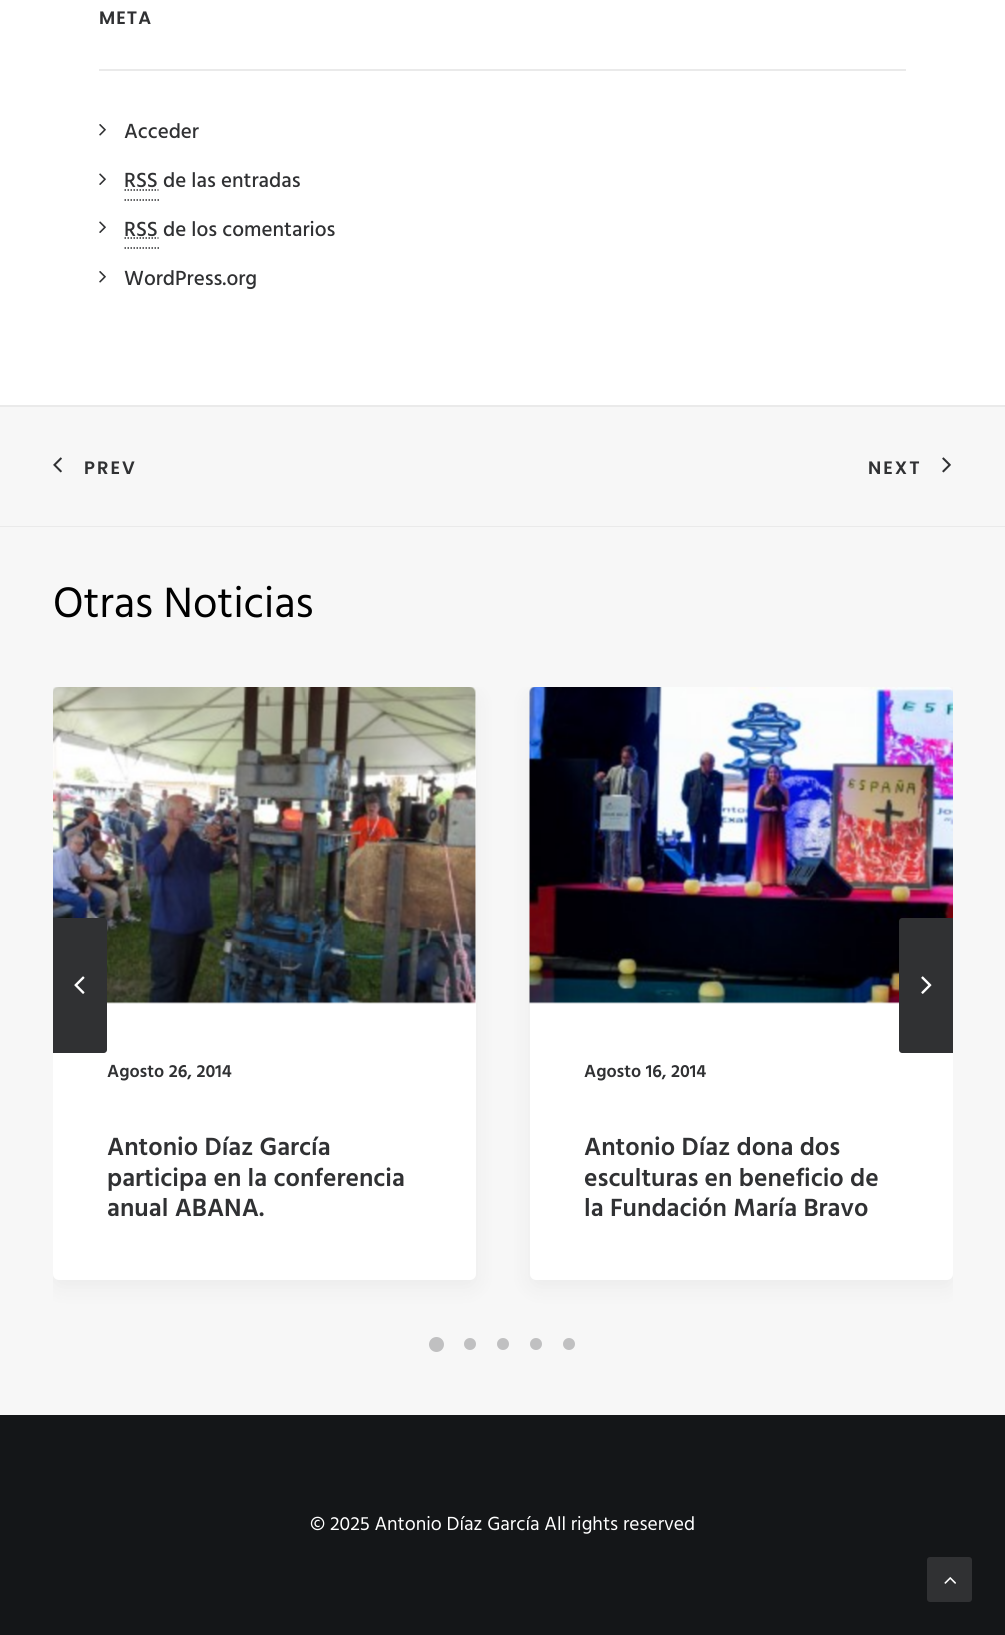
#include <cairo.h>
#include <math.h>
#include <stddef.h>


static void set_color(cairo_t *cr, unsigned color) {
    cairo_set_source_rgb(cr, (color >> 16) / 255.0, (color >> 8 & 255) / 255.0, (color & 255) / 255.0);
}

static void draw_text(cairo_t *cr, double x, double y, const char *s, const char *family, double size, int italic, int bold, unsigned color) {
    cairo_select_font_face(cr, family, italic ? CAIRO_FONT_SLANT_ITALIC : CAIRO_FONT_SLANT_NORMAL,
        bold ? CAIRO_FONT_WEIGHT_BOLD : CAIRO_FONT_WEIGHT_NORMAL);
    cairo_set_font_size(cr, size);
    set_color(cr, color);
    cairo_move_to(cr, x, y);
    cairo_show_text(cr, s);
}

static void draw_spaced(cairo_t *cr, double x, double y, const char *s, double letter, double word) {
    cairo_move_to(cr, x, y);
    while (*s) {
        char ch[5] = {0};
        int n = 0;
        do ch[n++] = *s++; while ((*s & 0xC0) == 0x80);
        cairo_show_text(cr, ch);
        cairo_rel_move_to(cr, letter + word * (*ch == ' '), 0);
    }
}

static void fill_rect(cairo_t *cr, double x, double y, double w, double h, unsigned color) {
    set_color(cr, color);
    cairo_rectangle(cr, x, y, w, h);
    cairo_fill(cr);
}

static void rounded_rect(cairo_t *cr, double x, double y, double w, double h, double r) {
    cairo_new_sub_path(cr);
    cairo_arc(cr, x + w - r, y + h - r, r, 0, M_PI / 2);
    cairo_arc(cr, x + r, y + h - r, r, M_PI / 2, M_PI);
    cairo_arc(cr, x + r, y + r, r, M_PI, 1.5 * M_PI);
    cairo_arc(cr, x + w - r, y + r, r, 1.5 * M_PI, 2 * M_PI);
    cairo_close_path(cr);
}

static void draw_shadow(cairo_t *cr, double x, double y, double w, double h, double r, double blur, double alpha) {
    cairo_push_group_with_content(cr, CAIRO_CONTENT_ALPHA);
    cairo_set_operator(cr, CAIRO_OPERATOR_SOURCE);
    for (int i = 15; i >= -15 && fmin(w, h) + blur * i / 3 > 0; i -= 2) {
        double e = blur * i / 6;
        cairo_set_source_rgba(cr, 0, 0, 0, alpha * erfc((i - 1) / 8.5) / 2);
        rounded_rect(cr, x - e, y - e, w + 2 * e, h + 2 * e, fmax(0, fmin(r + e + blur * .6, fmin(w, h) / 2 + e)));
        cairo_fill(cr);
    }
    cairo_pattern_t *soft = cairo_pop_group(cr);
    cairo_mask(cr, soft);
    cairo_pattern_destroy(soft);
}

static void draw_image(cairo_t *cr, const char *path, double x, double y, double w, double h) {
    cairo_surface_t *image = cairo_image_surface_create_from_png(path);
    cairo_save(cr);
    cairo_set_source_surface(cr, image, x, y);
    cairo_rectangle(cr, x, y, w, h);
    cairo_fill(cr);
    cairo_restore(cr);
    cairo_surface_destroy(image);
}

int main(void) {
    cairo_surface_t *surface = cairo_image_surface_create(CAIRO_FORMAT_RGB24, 1005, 1635);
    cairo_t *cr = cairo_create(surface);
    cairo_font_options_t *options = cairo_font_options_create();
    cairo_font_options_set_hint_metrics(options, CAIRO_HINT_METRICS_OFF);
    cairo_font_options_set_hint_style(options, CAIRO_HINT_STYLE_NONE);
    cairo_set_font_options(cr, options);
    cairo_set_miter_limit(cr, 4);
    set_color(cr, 0xFFFFFF);
    cairo_paint(cr);
    fill_rect(cr, 99, 69, 807, 2, 0xEAEAEA);
    cairo_select_font_face(cr, "Poppins SemiBold", CAIRO_FONT_SLANT_NORMAL, CAIRO_FONT_WEIGHT_NORMAL);
    cairo_set_font_size(cr, 18);
    set_color(cr, 0x303133);
    draw_spaced(cr, 99, 24, "META", 1, 0);
    draw_image(cr, "assets/img1.png", 99, 124, 7, 12);
    draw_text(cr, 124, 138, "Acceder", "Hind Medium", 21, 0, 0, 0x303133);
    draw_image(cr, "assets/img2.png", 99, 173, 7, 12);
    draw_text(cr, 124, 187, "RSS de las entradas", "Hind Medium", 21, 0, 0, 0x303133);
    cairo_new_path(cr);
    cairo_move_to(cr, 124.5, 200);
    cairo_line_to(cr, 159, 200);
    cairo_move_to(cr, 124.5, 190);
    cairo_line_to(cr, 158.5, 190);
    cairo_set_line_width(cr, 1.5);
    cairo_set_dash(cr, (double[]){1.5, 1.5}, 2, 0);
    cairo_stroke(cr);
    draw_image(cr, "assets/img2.png", 99, 221, 7, 12);
    draw_text(cr, 124, 236, "RSS de los comentarios", "Hind Medium", 21, 0, 0, 0x303133);
    cairo_new_path(cr);
    cairo_move_to(cr, 124.5, 248);
    cairo_line_to(cr, 159, 248);
    cairo_move_to(cr, 124.5, 238);
    cairo_line_to(cr, 158.5, 238);
    cairo_stroke(cr);
    draw_image(cr, "assets/img1.png", 99, 271, 7, 12);
    draw_text(cr, 124, 285, "WordPress.org", "Hind Medium", 21, 0, 0, 0x303133);
    set_color(cr, 0xF7F7F7);
    cairo_rectangle(cr, -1, 406, 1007, 121);
    cairo_fill_preserve(cr);
    set_color(cr, 0xEAEAEA);
    cairo_set_line_width(cr, 2);
    cairo_set_dash(cr, NULL, 0, 0);
    cairo_stroke(cr);
    draw_image(cr, "assets/img3.png", 53, 457, 9, 16);
    cairo_select_font_face(cr, "Poppins SemiBold", CAIRO_FONT_SLANT_NORMAL, CAIRO_FONT_WEIGHT_NORMAL);
    cairo_set_font_size(cr, 18);
    set_color(cr, 0x303133);
    draw_spaced(cr, 84, 474, "PREV", 2, 0);
    draw_spaced(cr, 868, 474, "NEXT", 2, 0);
    draw_image(cr, "assets/img4.png", 942, 457, 9, 16);
    fill_rect(cr, 0, 527, 1005, 888, 0xF7F7F7);
    draw_text(cr, 53, 617, "Otras Noticias", "Hind", 43.5, 0, 0, 0x000000);
    cairo_save(cr);
    cairo_rectangle(cr, 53, 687, 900, 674);
    cairo_clip(cr);
    set_color(cr, 0x000000);
    draw_shadow(cr, 53, 695, 423, 592, 6, 11, 0.05);
    cairo_restore(cr);
    set_color(cr, 0xFFFFFF);
    rounded_rect(cr, 53, 687, 423, 593, 6);
    cairo_fill(cr);
    draw_image(cr, "assets/img7.png", 53, 687, 423, 317);
    set_color(cr, 0x303133);
    cairo_new_path(cr);
    cairo_move_to(cr, 53, 918);
    cairo_line_to(cr, 104, 918);
    cairo_curve_to(cr, 105.5, 918, 107, 919.5, 107, 921);
    cairo_line_to(cr, 107, 1050);
    cairo_curve_to(cr, 107, 1051.5, 105.5, 1053, 104, 1053);
    cairo_line_to(cr, 53, 1053);
    cairo_close_path(cr);
    cairo_fill(cr);
    draw_image(cr, "assets/img5.png", 74, 976, 11, 18);
    cairo_save(cr);
    cairo_rectangle(cr, 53, 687, 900, 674);
    cairo_clip(cr);
    set_color(cr, 0x000000);
    draw_shadow(cr, 530, 695, 423, 592, 6, 11, 0.05);
    cairo_restore(cr);
    set_color(cr, 0xFFFFFF);
    rounded_rect(cr, 530, 687, 423, 593, 6);
    cairo_fill(cr);
    draw_image(cr, "assets/img8.png", 529, 687, 424, 317);
    set_color(cr, 0x303133);
    cairo_new_path(cr);
    cairo_move_to(cr, 902, 918);
    cairo_line_to(cr, 953, 918);
    cairo_line_to(cr, 953, 1053);
    cairo_line_to(cr, 902, 1053);
    cairo_curve_to(cr, 900.5, 1053, 899, 1051.5, 899, 1050);
    cairo_line_to(cr, 899, 921);
    cairo_curve_to(cr, 899, 919.5, 900.5, 918, 902, 918);
    cairo_close_path(cr);
    cairo_fill(cr);
    draw_image(cr, "assets/img6.png", 921, 976, 11, 18);
    draw_text(cr, 107, 1077, "Agosto 26, 2014", "Hind SemiBold", 18, 0, 0, 0x303133);
    draw_text(cr, 107, 1155, "Antonio Díaz García", "Hind SemiBold", 25.5, 0, 0, 0x303133);
    draw_text(cr, 107, 1186, "participa en la conferencia", "Hind SemiBold", 25.5, 0, 0, 0x303133);
    draw_text(cr, 107, 1216, "anual ABANA.", "Hind SemiBold", 25.5, 0, 0, 0x303133);
    draw_text(cr, 584, 1077, "Agosto 16, 2014", "Hind SemiBold", 18, 0, 0, 0x303133);
    draw_text(cr, 584, 1155, "Antonio Díaz dona dos", "Hind SemiBold", 25.5, 0, 0, 0x303133);
    draw_text(cr, 584, 1186, "esculturas en beneficio de", "Hind SemiBold", 25.5, 0, 0, 0x303133);
    draw_text(cr, 584, 1216, "la Fundación María Bravo", "Hind SemiBold", 25.5, 0, 0, 0x303133);
    set_color(cr, 0xC0C0C1);
    cairo_new_path(cr);
    cairo_arc(cr, 436.5, 1344.5, 7.5, 0, 2 * M_PI);
    cairo_fill(cr);
    cairo_arc(cr, 470, 1344, 6, 0, 2 * M_PI);
    cairo_fill(cr);
    cairo_arc(cr, 503, 1344, 6, 0, 2 * M_PI);
    cairo_fill(cr);
    cairo_arc(cr, 536, 1344, 6, 0, 2 * M_PI);
    cairo_fill(cr);
    cairo_arc(cr, 569, 1344, 6, 0, 2 * M_PI);
    cairo_fill(cr);
    fill_rect(cr, 0, 1415, 1005, 220, 0x141618);
    draw_text(cr, 310, 1530, "© 2025 Antonio Díaz García All rights reserved", "Hind", 19.5, 0, 0, 0xFFFFFF);
    set_color(cr, 0x303133);
    rounded_rect(cr, 928, 1558, 43, 43, 2);
    cairo_fill_preserve(cr);
    cairo_stroke(cr);
    draw_image(cr, "assets/img9.png", 944, 1577, 12, 7);
    cairo_surface_write_to_png(surface, "output.png");
    cairo_font_options_destroy(options);
    cairo_destroy(cr);
    cairo_surface_destroy(surface);
    return 0;
}
